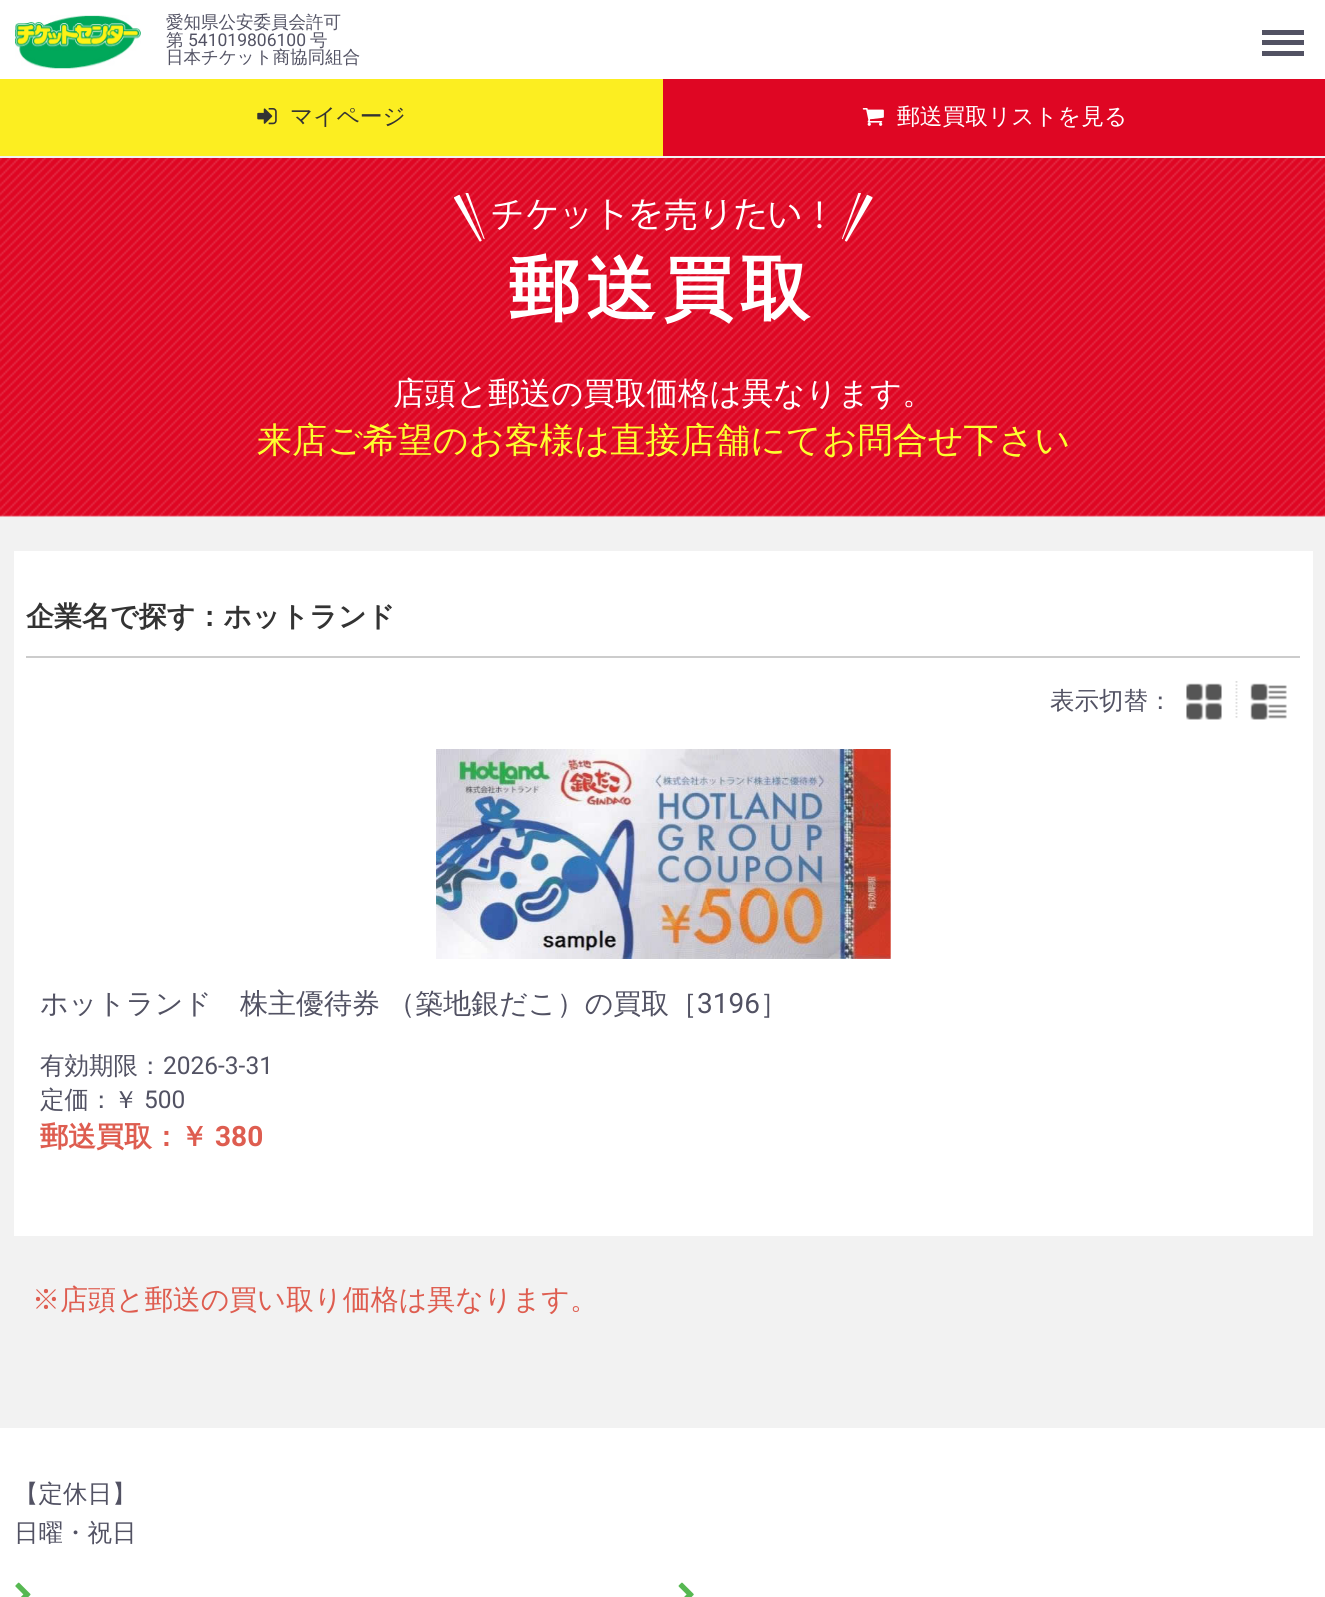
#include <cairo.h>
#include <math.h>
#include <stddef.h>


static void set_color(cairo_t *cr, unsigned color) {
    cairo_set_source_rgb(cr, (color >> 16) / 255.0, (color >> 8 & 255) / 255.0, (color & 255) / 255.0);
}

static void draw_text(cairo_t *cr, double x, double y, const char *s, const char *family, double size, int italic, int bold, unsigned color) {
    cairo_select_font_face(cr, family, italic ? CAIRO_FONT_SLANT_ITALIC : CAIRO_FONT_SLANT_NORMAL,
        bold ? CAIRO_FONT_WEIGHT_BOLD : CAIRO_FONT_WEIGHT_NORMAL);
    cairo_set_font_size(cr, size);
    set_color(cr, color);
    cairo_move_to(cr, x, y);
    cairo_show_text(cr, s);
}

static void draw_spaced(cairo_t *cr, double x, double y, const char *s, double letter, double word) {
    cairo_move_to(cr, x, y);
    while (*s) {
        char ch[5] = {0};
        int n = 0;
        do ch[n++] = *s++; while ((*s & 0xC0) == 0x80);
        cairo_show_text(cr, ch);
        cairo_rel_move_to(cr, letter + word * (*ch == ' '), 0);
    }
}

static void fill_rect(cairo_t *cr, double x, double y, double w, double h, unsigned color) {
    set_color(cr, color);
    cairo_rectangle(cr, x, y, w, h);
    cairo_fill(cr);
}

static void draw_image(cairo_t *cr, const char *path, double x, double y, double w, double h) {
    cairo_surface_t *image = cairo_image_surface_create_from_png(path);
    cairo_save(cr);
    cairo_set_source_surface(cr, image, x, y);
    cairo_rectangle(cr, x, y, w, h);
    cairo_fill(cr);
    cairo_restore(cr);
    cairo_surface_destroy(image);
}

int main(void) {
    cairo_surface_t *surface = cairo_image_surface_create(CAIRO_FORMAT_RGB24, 1325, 1597);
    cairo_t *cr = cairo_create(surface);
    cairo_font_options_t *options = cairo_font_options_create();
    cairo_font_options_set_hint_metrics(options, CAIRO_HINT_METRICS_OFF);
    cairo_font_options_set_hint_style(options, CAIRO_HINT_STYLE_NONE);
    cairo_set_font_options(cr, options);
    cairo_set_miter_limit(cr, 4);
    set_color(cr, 0xF2F2F2);
    cairo_paint(cr);
    fill_rect(cr, 0, 0, 1325, 79, 0xFFFFFF);
    draw_image(cr, "assets/img1.png", 15, 15, 126, 54);
    draw_text(cr, 166, 28, "愛知県公安委員会許可", "WenQuanYi Zen Hei Medium", 17.5, 0, 0, 0x525263);
    draw_text(cr, 166, 46, "第", "WenQuanYi Zen Hei Medium", 17.5, 0, 0, 0x525263);
    draw_text(cr, 188, 46, "541019806100", "Roboto", 17.5, 0, 0, 0x525263);
    draw_text(cr, 310, 46, "号", "WenQuanYi Zen Hei Medium", 17.5, 0, 0, 0x525263);
    draw_text(cr, 166, 63, "日本チケット商協同組合", "WenQuanYi Zen Hei Medium", 17.5, 0, 0, 0x525263);
    fill_rect(cr, 1262, 40, 42, 5, 0x525263);
    fill_rect(cr, 1262, 30, 42, 5, 0x525263);
    fill_rect(cr, 1262, 51, 42, 5, 0x525263);
    fill_rect(cr, 0, 79, 663, 77, 0xFCEE21);
    draw_image(cr, "assets/img2.png", 257, 108, 20, 17);
    draw_text(cr, 290, 124, "マイページ", "WenQuanYi Zen Hei Medium", 22.75, 0, 0, 0x333333);
    fill_rect(cr, 663, 79, 662, 77, 0xDF0623);
    draw_image(cr, "assets/img3.png", 862, 108, 22, 18);
    draw_text(cr, 897, 124, "郵送買取リストを見る", "WenQuanYi Zen Hei Medium", 22.75, 0, 0, 0xFFFFFF);
    draw_image(cr, "assets/img4.png", 0, 158, 1325, 359);
    draw_image(cr, "assets/img5.png", 454, 193, 419, 49);
    cairo_select_font_face(cr, "WenQuanYi Zen Hei", CAIRO_FONT_SLANT_NORMAL, CAIRO_FONT_WEIGHT_BOLD);
    cairo_set_font_size(cr, 70);
    draw_spaced(cr, 509, 313, "郵送買取", 7, 0);
    draw_text(cr, 393, 404, "店頭と郵送の買取価格は異なります。", "WenQuanYi Zen Hei Medium", 31.5, 0, 0, 0xFFFFFF);
    draw_text(cr, 257, 452, "来店ご希望のお客様は直接店舗にてお問合せ下さい", "WenQuanYi Zen Hei Medium", 35, 0, 0, 0xFCFF2F);
    fill_rect(cr, 14, 551, 1299, 685, 0xFFFFFF);
    fill_rect(cr, 26, 656, 1274, 2, 0xCCCCCC);
    draw_text(cr, 26, 626, "企業名で探す：ホットランド", "WenQuanYi Zen Hei", 28, 0, 1, 0x333333);
    draw_text(cr, 1050, 709, "表示切替：", "WenQuanYi Zen Hei Medium", 24.5, 0, 0, 0x525263);
    cairo_new_path(cr);
    cairo_move_to(cr, 1236.5, 681);
    cairo_line_to(cr, 1236.5, 719);
    set_color(cr, 0xDDDDDD);
    cairo_set_line_width(cr, 1.8);
    cairo_set_dash(cr, (double[]){1.75, 1.75}, 2, 0);
    cairo_stroke(cr);
    draw_image(cr, "assets/img6.png", 1186, 683, 36, 37);
    draw_image(cr, "assets/img7.png", 1250, 683, 37, 37);
    draw_image(cr, "assets/img8.png", 436, 749, 455, 210);
    cairo_set_font_size(cr, 28);
    set_color(cr, 0x525263);
    draw_spaced(cr, 40, 1013, "ホットランド　株主優待券 （築地銀だこ）の買取［", 0, -1);
    draw_text(cr, 697, 1013, "3196", "Roboto", 28, 0, 0, 0x525263);
    draw_text(cr, 760, 1013, "］", "WenQuanYi Zen Hei Medium", 28, 0, 0, 0x525263);
    draw_text(cr, 40, 1074, "有効期限：", "WenQuanYi Zen Hei Medium", 24.5, 0, 0, 0x525263);
    draw_text(cr, 163, 1074, "2026-3-31", "Roboto", 24.5, 0, 0, 0x525263);
    draw_text(cr, 40, 1108, "定価：￥", "WenQuanYi Zen Hei Medium", 24.5, 0, 0, 0x525263);
    draw_text(cr, 144, 1108, "500", "Roboto", 24.5, 0, 0, 0x525263);
    draw_text(cr, 40, 1146, "郵送買取：￥", "WenQuanYi Zen Hei", 28, 0, 1, 0xDE5D50);
    draw_text(cr, 215, 1146, "380", "Roboto", 28, 0, 1, 0xDE5D50);
    draw_text(cr, 32, 1309, "※店頭と郵送の買い取り価格は異なります。", "WenQuanYi Zen Hei Medium", 28, 0, 0, 0xDE5D50);
    fill_rect(cr, 0, 1428, 1325, 169, 0xFFFFFF);
    draw_text(cr, 14, 1502, "【定休日】", "WenQuanYi Zen Hei Medium", 24.5, 0, 0, 0x525263);
    draw_text(cr, 14, 1541, "日曜・祝日", "WenQuanYi Zen Hei Medium", 24.5, 0, 0, 0x525263);
    draw_image(cr, "assets/img9.png", 15, 1582, 16, 15);
    draw_image(cr, "assets/img10.png", 678, 1582, 16, 15);
    cairo_surface_write_to_png(surface, "output.png");
    cairo_font_options_destroy(options);
    cairo_destroy(cr);
    cairo_surface_destroy(surface);
    return 0;
}
